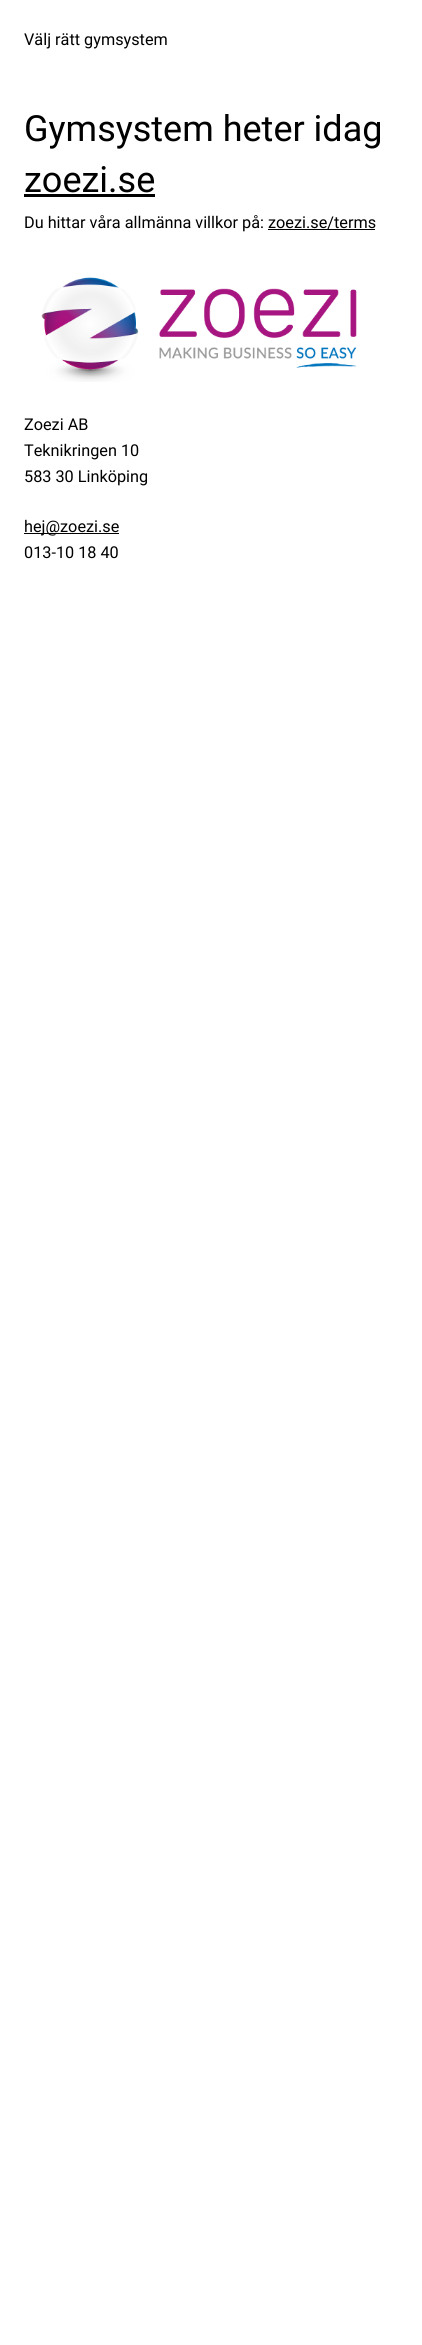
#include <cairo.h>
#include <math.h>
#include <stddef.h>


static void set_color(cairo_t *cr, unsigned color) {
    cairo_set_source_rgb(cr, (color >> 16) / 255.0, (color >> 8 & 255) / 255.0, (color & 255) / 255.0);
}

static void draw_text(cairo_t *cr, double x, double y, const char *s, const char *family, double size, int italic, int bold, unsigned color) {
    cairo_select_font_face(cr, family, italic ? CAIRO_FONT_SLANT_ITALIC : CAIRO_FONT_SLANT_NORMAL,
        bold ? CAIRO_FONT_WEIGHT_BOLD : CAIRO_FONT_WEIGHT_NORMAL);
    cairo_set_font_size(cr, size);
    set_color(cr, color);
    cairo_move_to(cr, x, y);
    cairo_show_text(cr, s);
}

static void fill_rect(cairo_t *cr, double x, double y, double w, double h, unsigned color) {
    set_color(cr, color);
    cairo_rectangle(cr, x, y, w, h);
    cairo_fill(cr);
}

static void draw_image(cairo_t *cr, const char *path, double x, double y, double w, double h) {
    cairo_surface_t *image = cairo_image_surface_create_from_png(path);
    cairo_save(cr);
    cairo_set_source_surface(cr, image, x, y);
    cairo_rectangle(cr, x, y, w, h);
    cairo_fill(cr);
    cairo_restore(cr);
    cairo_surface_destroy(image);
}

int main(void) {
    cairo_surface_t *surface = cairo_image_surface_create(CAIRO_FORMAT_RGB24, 422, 2345);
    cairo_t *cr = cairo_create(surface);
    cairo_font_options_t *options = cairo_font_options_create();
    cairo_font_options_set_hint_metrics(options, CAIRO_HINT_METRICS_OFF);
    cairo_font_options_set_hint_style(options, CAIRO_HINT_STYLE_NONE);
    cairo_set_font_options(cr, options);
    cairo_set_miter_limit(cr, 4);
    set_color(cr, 0xFFFFFF);
    cairo_paint(cr);
    draw_text(cr, 24, 45, "Välj rätt gymsystem", "Roboto", 16.25, 0, 0, 0x000000);
    draw_text(cr, 24, 141, "Gymsystem heter idag", "Roboto", 36, 0, 0, 0x000000);
    draw_text(cr, 24, 192, "zoezi.se", "Roboto", 36, 0, 0, 0x000000);
    fill_rect(cr, 24, 194, 131, 3, 0x000000);
    draw_text(cr, 24, 228, "Du hittar våra allmänna villkor på: zoezi.se/terms", "Roboto", 16.25, 0, 0, 0x000000);
    fill_rect(cr, 268, 229, 107, 1, 0x000000);
    draw_image(cr, "assets/img1.png", 41, 277, 316, 105);
    draw_text(cr, 24, 430, "Zoezi AB", "Roboto", 16.25, 0, 0, 0x000000);
    draw_text(cr, 24, 456, "Teknikringen 10", "Roboto", 16.25, 0, 0, 0x000000);
    draw_text(cr, 24, 482, "583 30 Linköping", "Roboto", 16.25, 0, 0, 0x000000);
    fill_rect(cr, 24, 533, 95, 1, 0x000000);
    draw_text(cr, 24, 532, "hej@zoezi.se", "Roboto", 16.25, 0, 0, 0x000000);
    draw_text(cr, 24, 558, "013-10 18 40", "Roboto", 16.25, 0, 0, 0x000000);
    cairo_surface_write_to_png(surface, "output.png");
    cairo_font_options_destroy(options);
    cairo_destroy(cr);
    cairo_surface_destroy(surface);
    return 0;
}
